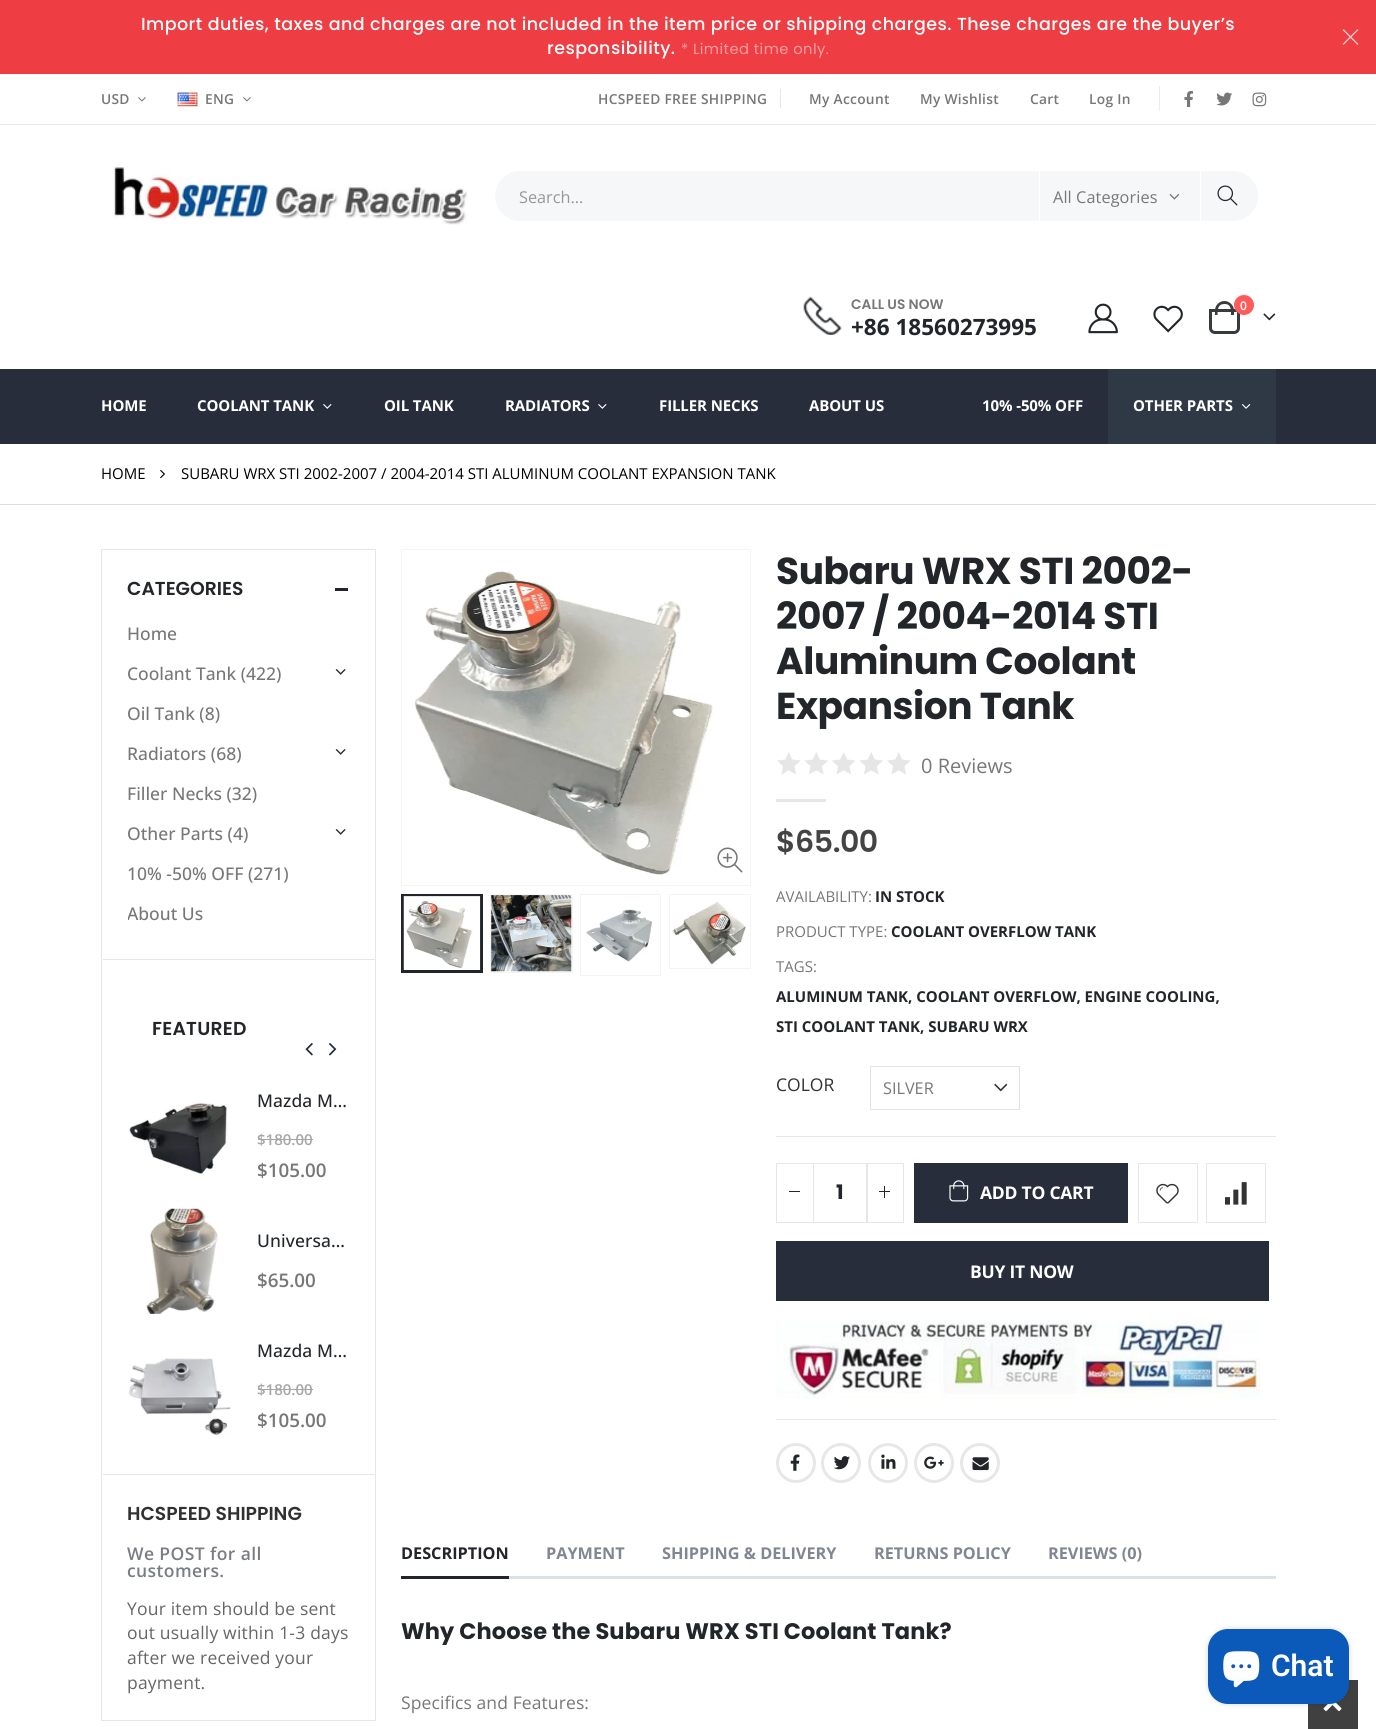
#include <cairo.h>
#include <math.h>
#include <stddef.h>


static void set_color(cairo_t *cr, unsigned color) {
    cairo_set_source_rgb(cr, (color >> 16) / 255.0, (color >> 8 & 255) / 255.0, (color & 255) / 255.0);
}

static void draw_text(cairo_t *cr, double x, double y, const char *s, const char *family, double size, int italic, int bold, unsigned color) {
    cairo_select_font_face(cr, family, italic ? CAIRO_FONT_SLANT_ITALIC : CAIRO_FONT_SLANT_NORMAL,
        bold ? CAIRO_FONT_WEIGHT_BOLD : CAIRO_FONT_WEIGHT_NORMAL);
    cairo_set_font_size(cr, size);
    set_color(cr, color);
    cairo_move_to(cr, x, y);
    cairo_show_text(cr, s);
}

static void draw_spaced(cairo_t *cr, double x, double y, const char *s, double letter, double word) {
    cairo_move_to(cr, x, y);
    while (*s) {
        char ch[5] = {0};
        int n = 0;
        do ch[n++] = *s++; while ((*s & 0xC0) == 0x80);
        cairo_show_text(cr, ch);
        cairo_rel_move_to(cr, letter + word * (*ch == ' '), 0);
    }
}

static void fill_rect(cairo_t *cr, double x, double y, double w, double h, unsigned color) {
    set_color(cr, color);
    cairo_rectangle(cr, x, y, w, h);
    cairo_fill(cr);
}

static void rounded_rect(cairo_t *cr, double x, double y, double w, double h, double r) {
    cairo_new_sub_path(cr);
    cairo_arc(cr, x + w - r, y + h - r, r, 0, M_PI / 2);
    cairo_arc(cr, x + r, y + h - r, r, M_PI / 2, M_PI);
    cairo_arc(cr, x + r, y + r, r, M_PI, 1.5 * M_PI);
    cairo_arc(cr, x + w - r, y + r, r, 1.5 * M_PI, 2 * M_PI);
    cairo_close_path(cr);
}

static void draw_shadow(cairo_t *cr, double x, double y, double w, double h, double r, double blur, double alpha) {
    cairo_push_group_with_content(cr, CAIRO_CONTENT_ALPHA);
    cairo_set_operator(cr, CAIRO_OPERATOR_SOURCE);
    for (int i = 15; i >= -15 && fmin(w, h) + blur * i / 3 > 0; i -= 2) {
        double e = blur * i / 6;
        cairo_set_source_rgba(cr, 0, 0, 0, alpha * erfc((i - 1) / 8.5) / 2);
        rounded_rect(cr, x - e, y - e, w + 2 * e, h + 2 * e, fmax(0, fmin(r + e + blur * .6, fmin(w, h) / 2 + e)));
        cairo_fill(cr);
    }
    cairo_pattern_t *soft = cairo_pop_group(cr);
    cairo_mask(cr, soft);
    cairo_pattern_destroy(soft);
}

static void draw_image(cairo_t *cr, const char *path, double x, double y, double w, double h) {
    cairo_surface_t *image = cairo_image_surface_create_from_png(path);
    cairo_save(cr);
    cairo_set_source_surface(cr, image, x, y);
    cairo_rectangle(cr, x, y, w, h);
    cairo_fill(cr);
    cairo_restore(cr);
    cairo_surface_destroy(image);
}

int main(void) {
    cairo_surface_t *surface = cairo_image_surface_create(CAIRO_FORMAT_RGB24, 1376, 1729);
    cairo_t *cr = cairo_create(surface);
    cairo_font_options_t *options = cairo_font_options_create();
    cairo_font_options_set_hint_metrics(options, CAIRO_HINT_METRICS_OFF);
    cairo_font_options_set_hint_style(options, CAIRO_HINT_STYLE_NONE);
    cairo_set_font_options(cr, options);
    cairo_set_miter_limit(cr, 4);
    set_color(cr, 0xFFFFFF);
    cairo_paint(cr);
    fill_rect(cr, 0, 0, 1376, 74, 0xEE3D43);
    cairo_select_font_face(cr, "Poppins Medium", CAIRO_FONT_SLANT_NORMAL, CAIRO_FONT_WEIGHT_NORMAL);
    cairo_set_font_size(cr, 17.5);
    set_color(cr, 0xFFFFFF);
    draw_spaced(cr, 141, 30, "Import duties, taxes and charges are not included in the item price or shipping charges. These charges are the buyer’s", 0.44, 0);
    draw_spaced(cr, 547, 54, "responsibility.", 0.44, 0);
    cairo_select_font_face(cr, "Poppins", CAIRO_FONT_SLANT_NORMAL, CAIRO_FONT_WEIGHT_NORMAL);
    cairo_set_font_size(cr, 14.75);
    set_color(cr, 0xF79EA1);
    draw_spaced(cr, 681, 54, "* Limited time only.", 0.44, 0);
    set_color(cr, 0xFAC5C7);
    cairo_new_path(cr);
    cairo_move_to(cr, 1343.5, 29);
    cairo_line_to(cr, 1358.5, 44);
    cairo_line_to(cr, 1357.5, 45);
    cairo_line_to(cr, 1342.5, 30);
    cairo_close_path(cr);
    cairo_fill(cr);
    cairo_new_path(cr);
    cairo_move_to(cr, 1357.5, 29);
    cairo_line_to(cr, 1358.5, 30);
    cairo_line_to(cr, 1343.5, 45);
    cairo_line_to(cr, 1342.5, 44);
    cairo_close_path(cr);
    cairo_fill(cr);
    fill_rect(cr, 0, 124, 1376, 1, 0xE7E7E7);
    cairo_select_font_face(cr, "Open Sans SemiBold", CAIRO_FONT_SLANT_NORMAL, CAIRO_FONT_WEIGHT_NORMAL);
    cairo_set_font_size(cr, 13.75);
    set_color(cr, 0x777777);
    draw_spaced(cr, 101, 104, "USD", 0.3, 0);
    draw_image(cr, "assets/img1.png", 138, 97, 8, 5);
    draw_image(cr, "assets/img2.png", 177, 92, 21, 15);
    draw_spaced(cr, 205, 104, "ENG", 0.3, 0);
    draw_image(cr, "assets/img1.png", 243, 97, 8, 5);
    draw_spaced(cr, 598, 104, "HCSPEED FREE SHIPPING", 0.3, 0);
    fill_rect(cr, 780, 89, 1, 19, 0xE7E7E7);
    set_color(cr, 0x777777);
    draw_spaced(cr, 809, 104, "My Account", 0.3, 0);
    draw_spaced(cr, 920, 104, "My Wishlist", 0.3, 0);
    draw_spaced(cr, 1030, 104, "Cart", 0.3, 0);
    draw_spaced(cr, 1089, 104, "Log In", 0.3, 0);
    fill_rect(cr, 1159, 86, 1, 25, 0xECECEC);
    draw_image(cr, "assets/img3.png", 1184, 91, 10, 16);
    draw_image(cr, "assets/img4.png", 1216, 92, 17, 14);
    draw_image(cr, "assets/img5.png", 1252, 92, 15, 15);
    draw_image(cr, "assets/img6.png", 113, 165, 355, 60);
    set_color(cr, 0xF6F7F9);
    rounded_rect(cr, 495, 171, 763, 50, 25);
    cairo_fill(cr);
    draw_text(cr, 519, 203, "Search...", "Open Sans", 16.25, 0, 0, 0x979798);
    fill_rect(cr, 1200, 171, 1, 50, 0xFFFFFF);
    fill_rect(cr, 1039, 171, 1, 50, 0xFFFFFF);
    set_color(cr, 0x777777);
    draw_spaced(cr, 1053, 203, "All Categories", 0.1, 0);
    draw_image(cr, "assets/img7.png", 1169, 193, 11, 7);
    draw_image(cr, "assets/img8.png", 1217, 185, 21, 21);
    draw_image(cr, "assets/img9.png", 803, 296, 39, 39);
    draw_text(cr, 851, 309, "CALL US NOW", "Poppins SemiBold", 13.75, 0, 0, 0x777777);
    draw_text(cr, 851, 335, "+86 18560273995", "Open Sans", 22.5, 0, 1, 0x222529);
    draw_image(cr, "assets/img10.png", 1088, 303, 30, 31);
    draw_image(cr, "assets/img11.png", 1153, 305, 30, 28);
    cairo_new_path(cr);
    cairo_move_to(cr, 1210.5, 310.5);
    cairo_line_to(cr, 1238.5, 310.5);
    cairo_line_to(cr, 1238.5, 328);
    cairo_curve_to(cr, 1238.5, 330.5, 1236.5, 332.5, 1234, 332.5);
    cairo_line_to(cr, 1215, 332.5);
    cairo_curve_to(cr, 1212.5, 332.5, 1210.5, 330.5, 1210.5, 328);
    cairo_close_path(cr);
    set_color(cr, 0x383B3E);
    cairo_set_line_width(cr, 3);
    cairo_stroke(cr);
    cairo_set_fill_rule(cr, CAIRO_FILL_RULE_EVEN_ODD);
    cairo_new_path(cr);
    cairo_move_to(cr, 1224.5, 301);
    cairo_curve_to(cr, 1229.5, 301, 1234, 305.5, 1234, 310.5);
    cairo_line_to(cr, 1234, 315);
    cairo_line_to(cr, 1215, 315);
    cairo_line_to(cr, 1215, 310.5);
    cairo_curve_to(cr, 1215, 305.5, 1219, 301, 1224.5, 301);
    cairo_close_path(cr);
    cairo_move_to(cr, 1224.5, 304);
    cairo_curve_to(cr, 1231.5, 304, 1231, 310, 1231, 315);
    cairo_line_to(cr, 1217.5, 315);
    cairo_curve_to(cr, 1217.5, 310, 1217.5, 304, 1224.5, 304);
    cairo_close_path(cr);
    cairo_fill(cr);
    set_color(cr, 0xFF5B5B);
    cairo_arc(cr, 1244, 305, 10, 0, 2 * M_PI);
    cairo_fill(cr);
    draw_text(cr, 1240, 310, "0", "Open Sans SemiBold", 12, 0, 0, 0xFFFFFF);
    draw_image(cr, "assets/img12.png", 1263, 313, 13, 8);
    fill_rect(cr, 0, 369, 1376, 75, 0x282D3B);
    cairo_select_font_face(cr, "Open Sans", CAIRO_FONT_SLANT_NORMAL, CAIRO_FONT_WEIGHT_BOLD);
    cairo_set_font_size(cr, 15);
    set_color(cr, 0xFFFFFF);
    draw_spaced(cr, 101, 411, "HOME", -0.1, 0);
    draw_spaced(cr, 197, 411, "COOLANT TANK", -0.1, 0);
    draw_image(cr, "assets/img13.png", 323, 404, 9, 5);
    draw_spaced(cr, 384, 411, "OIL TANK", -0.1, 0);
    draw_spaced(cr, 505, 411, "RADIATORS", -0.1, 0);
    draw_image(cr, "assets/img13.png", 598, 404, 9, 5);
    draw_spaced(cr, 659, 411, "FILLER NECKS", -0.1, 0);
    draw_spaced(cr, 809, 411, "ABOUT US", -0.1, 0);
    draw_spaced(cr, 982, 411, "10% -50% OFF", -0.1, 0);
    fill_rect(cr, 1108, 369, 168, 75, 0x2F3946);
    set_color(cr, 0xFFFFFF);
    draw_spaced(cr, 1133, 411, "OTHER PARTS", -0.1, 0);
    draw_image(cr, "assets/img14.png", 1241, 404, 10, 5);
    fill_rect(cr, 0, 504, 1376, 1, 0xDFDFDF);
    draw_text(cr, 101, 479, "HOME", "Open Sans", 15, 0, 0, 0x000000);
    draw_image(cr, "assets/img15.png", 160, 469, 5, 10);
    draw_text(cr, 181, 479, "SUBARU WRX STI 2002-2007 / 2004-2014 STI ALUMINUM COOLANT EXPANSION TANK", "Open Sans", 15, 0, 0, 0x000000);
    cairo_rectangle(cr, 101.5, 549.5, 274, 1171);
    set_color(cr, 0xE7E7E7);
    cairo_set_line_width(cr, 1);
    cairo_stroke(cr);
    fill_rect(cr, 103, 959, 272, 1, 0xE7E7E7);
    draw_text(cr, 127, 595, "CATEGORIES", "Poppins SemiBold", 18.75, 0, 0, 0x222529);
    fill_rect(cr, 335, 588, 13, 3, 0x222529);
    draw_text(cr, 127, 640, "Home", "Open Sans Medium", 17.5, 0, 0, 0x777777);
    draw_text(cr, 127, 680, "Coolant Tank (422)", "Open Sans Medium", 17.5, 0, 0, 0x777777);
    draw_image(cr, "assets/img16.png", 335, 669, 11, 6);
    draw_text(cr, 127, 720, "Oil Tank (8)", "Open Sans Medium", 17.5, 0, 0, 0x777777);
    draw_text(cr, 127, 760, "Radiators (68)", "Open Sans Medium", 17.5, 0, 0, 0x777777);
    draw_image(cr, "assets/img16.png", 335, 749, 11, 6);
    draw_text(cr, 127, 800, "Filler Necks (32)", "Open Sans Medium", 17.5, 0, 0, 0x777777);
    draw_text(cr, 127, 840, "Other Parts (4)", "Open Sans Medium", 17.5, 0, 0, 0x777777);
    draw_image(cr, "assets/img16.png", 335, 829, 11, 6);
    draw_text(cr, 127, 880, "10% -50% OFF (271)", "Open Sans Medium", 17.5, 0, 0, 0x777777);
    cairo_save(cr);
    cairo_set_fill_rule(cr, CAIRO_FILL_RULE_WINDING);
    cairo_rectangle(cr, 128, 601, 222, 333);
    cairo_clip(cr);
    draw_text(cr, 127, 920, "About Us", "Open Sans Medium", 17.5, 0, 0, 0x777777);
    cairo_restore(cr);
    fill_rect(cr, 103, 1474, 272, 1, 0xE7E7E7);
    cairo_select_font_face(cr, "Poppins SemiBold", CAIRO_FONT_SLANT_NORMAL, CAIRO_FONT_WEIGHT_NORMAL);
    cairo_set_font_size(cr, 18.75);
    set_color(cr, 0x222529);
    draw_spaced(cr, 152, 1035, "FEATURED", 0.25, 0);
    draw_image(cr, "assets/img17.png", 305, 1043, 8, 13);
    draw_image(cr, "assets/img18.png", 329, 1043, 8, 13);
    draw_image(cr, "assets/img19.png", 129, 1102, 99, 72);
    cairo_select_font_face(cr, "Open Sans Medium", CAIRO_FONT_SLANT_NORMAL, CAIRO_FONT_WEIGHT_NORMAL);
    cairo_set_font_size(cr, 17.5);
    draw_spaced(cr, 257, 1107, "Mazda M…", 0.1, 0);
    draw_text(cr, 257, 1145, "$180.00", "Open Sans SemiBold", 15, 0, 0, 0xA7A7A7);
    fill_rect(cr, 258, 1139, 55, 1, 0xA7A7A7);
    draw_text(cr, 257, 1177, "$105.00", "Open Sans SemiBold", 18.75, 0, 0, 0x777777);
    draw_image(cr, "assets/img20.png", 146, 1208, 72, 106);
    cairo_select_font_face(cr, "Open Sans Medium", CAIRO_FONT_SLANT_NORMAL, CAIRO_FONT_WEIGHT_NORMAL);
    cairo_set_font_size(cr, 17.5);
    set_color(cr, 0x222529);
    draw_spaced(cr, 257, 1247, "Universa…", 0.1, 0);
    draw_text(cr, 257, 1287, "$65.00", "Open Sans SemiBold", 18.75, 0, 0, 0x777777);
    draw_image(cr, "assets/img21.png", 128, 1358, 103, 77);
    cairo_select_font_face(cr, "Open Sans Medium", CAIRO_FONT_SLANT_NORMAL, CAIRO_FONT_WEIGHT_NORMAL);
    cairo_set_font_size(cr, 17.5);
    set_color(cr, 0x222529);
    draw_spaced(cr, 257, 1357, "Mazda M…", 0.1, 0);
    draw_text(cr, 257, 1395, "$180.00", "Open Sans SemiBold", 15, 0, 0, 0xA7A7A7);
    fill_rect(cr, 258, 1389, 55, 1, 0xA7A7A7);
    draw_text(cr, 257, 1427, "$105.00", "Open Sans SemiBold", 18.75, 0, 0, 0x777777);
    draw_text(cr, 127, 1520, "HCSPEED SHIPPING", "Poppins SemiBold", 18.75, 0, 0, 0x313131);
    cairo_select_font_face(cr, "Open Sans SemiBold", CAIRO_FONT_SLANT_NORMAL, CAIRO_FONT_WEIGHT_NORMAL);
    cairo_set_font_size(cr, 17.5);
    set_color(cr, 0x7A7D82);
    draw_spaced(cr, 127, 1560, "We POST for all", 0.4, 0);
    draw_spaced(cr, 127, 1577, "customers.", 0.4, 0);
    cairo_select_font_face(cr, "Open Sans", CAIRO_FONT_SLANT_NORMAL, CAIRO_FONT_WEIGHT_NORMAL);
    set_color(cr, 0x666666);
    draw_spaced(cr, 127, 1615, "Your item should be sent", 0.2, 0);
    draw_spaced(cr, 127, 1639, "out usually within 1-3 days", 0.2, 0);
    draw_spaced(cr, 127, 1664, "after we received your", 0.2, 0);
    draw_spaced(cr, 127, 1689, "payment.", 0.2, 0);
    cairo_rectangle(cr, 401.5, 549.5, 349, 336);
    set_color(cr, 0xF4F4F4);
    cairo_stroke(cr);
    draw_image(cr, "assets/img22.png", 414, 571, 299, 304);
    draw_image(cr, "assets/img23.png", 717, 847, 26, 26);
    cairo_rectangle(cr, 402.5, 895.5, 79, 76);
    set_color(cr, 0x222529);
    cairo_set_line_width(cr, 3);
    cairo_stroke(cr);
    draw_image(cr, "assets/img24.png", 403, 896, 78, 74);
    cairo_rectangle(cr, 490.5, 894.5, 82, 78);
    set_color(cr, 0xF4F4F4);
    cairo_set_line_width(cr, 1);
    cairo_stroke(cr);
    draw_image(cr, "assets/img25.png", 491, 895, 81, 77);
    cairo_rectangle(cr, 580.5, 894.5, 80, 81);
    cairo_stroke(cr);
    draw_image(cr, "assets/img26.png", 586, 909, 67, 53);
    cairo_rectangle(cr, 669.5, 894.5, 81, 74);
    cairo_stroke(cr);
    draw_image(cr, "assets/img27.png", 672, 902, 74, 63);
    cairo_select_font_face(cr, "Poppins", CAIRO_FONT_SLANT_NORMAL, CAIRO_FONT_WEIGHT_BOLD);
    cairo_set_font_size(cr, 37.5);
    set_color(cr, 0x222529);
    draw_spaced(cr, 776, 584, "Subaru WRX STI 2002-", -0.4, 0);
    draw_spaced(cr, 776, 629, "2007 / 2004-2014 STI", -0.4, 0);
    draw_spaced(cr, 776, 674, "Aluminum Coolant", -0.4, 0);
    draw_spaced(cr, 776, 719, "Expansion Tank", -0.4, 0);
    draw_image(cr, "assets/img28.png", 777, 752, 24, 23);
    draw_image(cr, "assets/img29.png", 804, 752, 24, 23);
    draw_image(cr, "assets/img28.png", 832, 752, 24, 23);
    draw_image(cr, "assets/img29.png", 859, 752, 24, 23);
    draw_image(cr, "assets/img28.png", 887, 752, 24, 23);
    draw_text(cr, 921, 773, "0 Reviews", "Open Sans", 20, 0, 0, 0x777777);
    fill_rect(cr, 776, 799, 50, 3, 0xE7E7E7);
    cairo_select_font_face(cr, "Poppins SemiBold", CAIRO_FONT_SLANT_NORMAL, CAIRO_FONT_WEIGHT_NORMAL);
    cairo_set_font_size(cr, 30);
    set_color(cr, 0x444444);
    draw_spaced(cr, 776, 852, "$65.00", -0.5, 0);
    draw_text(cr, 776, 902, "AVAILABILITY:", "Open Sans", 15, 0, 0, 0x777777);
    draw_text(cr, 875, 902, "IN STOCK", "Open Sans", 15, 0, 1, 0x222529);
    draw_text(cr, 776, 937, "PRODUCT TYPE:", "Open Sans", 15, 0, 0, 0x777777);
    draw_text(cr, 891, 937, "COOLANT OVERFLOW TANK", "Open Sans", 15, 0, 1, 0x222529);
    draw_text(cr, 776, 972, "TAGS:", "Open Sans", 15, 0, 0, 0x777777);
    draw_text(cr, 776, 1002, "ALUMINUM TANK, COOLANT OVERFLOW, ENGINE COOLING,", "Open Sans", 15, 0, 1, 0x222529);
    draw_text(cr, 776, 1032, "STI COOLANT TANK, SUBARU WRX", "Open Sans", 15, 0, 1, 0x222529);
    draw_text(cr, 776, 1091, "COLOR", "Open Sans", 17.5, 0, 0, 0x313131);
    draw_image(cr, "assets/img30.png", 994, 1083, 14, 9);
    cairo_rectangle(cr, 870.5, 1066.5, 149, 43);
    set_color(cr, 0xE4E4E4);
    cairo_stroke(cr);
    draw_text(cr, 883, 1094, "SILVER", "Open Sans", 16.25, 0, 0, 0x777777);
    fill_rect(cr, 776, 1136, 500, 1, 0xE7E7E7);
    fill_rect(cr, 776, 1419, 500, 1, 0xE7E7E7);
    cairo_rectangle(cr, 813.5, 1163.5, 54, 59);
    cairo_stroke(cr);
    cairo_rectangle(cr, 776.5, 1163.5, 37, 59);
    cairo_stroke(cr);
    fill_rect(cr, 789, 1191, 11, 1, 0x222529);
    cairo_rectangle(cr, 866.5, 1163.5, 37, 59);
    set_color(cr, 0xE7E7E7);
    cairo_stroke(cr);
    fill_rect(cr, 879, 1191, 11, 1, 0x222529);
    fill_rect(cr, 884, 1186, 1, 12, 0x222529);
    draw_text(cr, 836, 1199, "1", "Poppins", 20, 0, 1, 0x222529);
    fill_rect(cr, 914, 1163, 214, 60, 0x282D3B);
    draw_image(cr, "assets/img31.png", 949, 1180, 20, 22);
    cairo_select_font_face(cr, "Open Sans", CAIRO_FONT_SLANT_NORMAL, CAIRO_FONT_WEIGHT_BOLD);
    cairo_set_font_size(cr, 17.5);
    set_color(cr, 0xFFFFFF);
    draw_spaced(cr, 980, 1199, "ADD TO CART", -0.25, 0);
    cairo_rectangle(cr, 1138.5, 1163.5, 59, 59);
    set_color(cr, 0xE7E7E7);
    cairo_stroke(cr);
    draw_image(cr, "assets/img32.png", 1156, 1183, 23, 21);
    cairo_rectangle(cr, 1206.5, 1163.5, 59, 59);
    cairo_stroke(cr);
    draw_image(cr, "assets/img33.png", 1225, 1182, 22, 23);
    fill_rect(cr, 776, 1241, 493, 60, 0x282D3B);
    set_color(cr, 0xFFFFFF);
    draw_spaced(cr, 970, 1278, "BUY IT NOW", -0.25, 0);
    draw_image(cr, "assets/img34.png", 776, 1320, 484, 79);
    cairo_arc(cr, 796, 1463, 18.5, 0, 2 * M_PI);
    set_color(cr, 0xE7E7E7);
    cairo_set_line_width(cr, 3);
    cairo_stroke(cr);
    draw_image(cr, "assets/img35.png", 790, 1454, 10, 17);
    cairo_arc(cr, 841, 1463, 18.5, 0, 2 * M_PI);
    cairo_stroke(cr);
    draw_image(cr, "assets/img36.png", 834, 1456, 16, 14);
    cairo_arc(cr, 888, 1463, 18.5, 0, 2 * M_PI);
    cairo_stroke(cr);
    draw_image(cr, "assets/img37.png", 881, 1454, 15, 15);
    cairo_arc(cr, 934, 1463, 18.5, 0, 2 * M_PI);
    cairo_stroke(cr);
    draw_image(cr, "assets/img38.png", 924, 1456, 20, 13);
    cairo_arc(cr, 980, 1463, 18.5, 0, 2 * M_PI);
    cairo_stroke(cr);
    draw_image(cr, "assets/img39.png", 972, 1457, 17, 14);
    fill_rect(cr, 509, 1576, 767, 3, 0xDAE2E6);
    fill_rect(cr, 401, 1576, 108, 3, 0x222529);
    draw_text(cr, 401, 1559, "DESCRIPTION", "Open Sans", 16.25, 0, 1, 0x222529);
    draw_text(cr, 546, 1559, "PAYMENT", "Open Sans", 16.25, 0, 1, 0x818692);
    draw_text(cr, 662, 1559, "SHIPPING & DELIVERY", "Open Sans", 16.25, 0, 1, 0x818692);
    draw_text(cr, 874, 1559, "RETURNS POLICY", "Open Sans", 16.25, 0, 1, 0x818692);
    draw_text(cr, 1048, 1559, "REVIEWS (0)", "Open Sans", 16.25, 0, 1, 0x818692);
    cairo_select_font_face(cr, "Poppins", CAIRO_FONT_SLANT_NORMAL, CAIRO_FONT_WEIGHT_BOLD);
    cairo_set_font_size(cr, 22.5);
    set_color(cr, 0x222529);
    draw_spaced(cr, 401, 1639, "Why Choose the Subaru WRX STI Coolant Tank?", 0.1, 0);
    cairo_select_font_face(cr, "Open Sans", CAIRO_FONT_SLANT_NORMAL, CAIRO_FONT_WEIGHT_NORMAL);
    cairo_set_font_size(cr, 17.5);
    set_color(cr, 0x777777);
    draw_spaced(cr, 401, 1709, "Specifics and Features:", 0.1, 0);
    fill_rect(cr, 1308, 1680, 50, 49, 0x404040);
    draw_image(cr, "assets/img40.png", 1323, 1702, 19, 10);
    set_color(cr, 0x000000);
    draw_shadow(cr, 1208, 1629, 141, 75, 20, 3, 0.15);
    set_color(cr, 0x0B59B8);
    rounded_rect(cr, 1208, 1629, 141, 75, 20);
    cairo_fill(cr);
    draw_image(cr, "assets/img41.png", 1223, 1651, 37, 37);
    draw_text(cr, 1271, 1676, "Chat", "Roboto SemiBold", 30, 0, 0, 0xFFFFFF);
    cairo_surface_write_to_png(surface, "output.png");
    cairo_font_options_destroy(options);
    cairo_destroy(cr);
    cairo_surface_destroy(surface);
    return 0;
}
